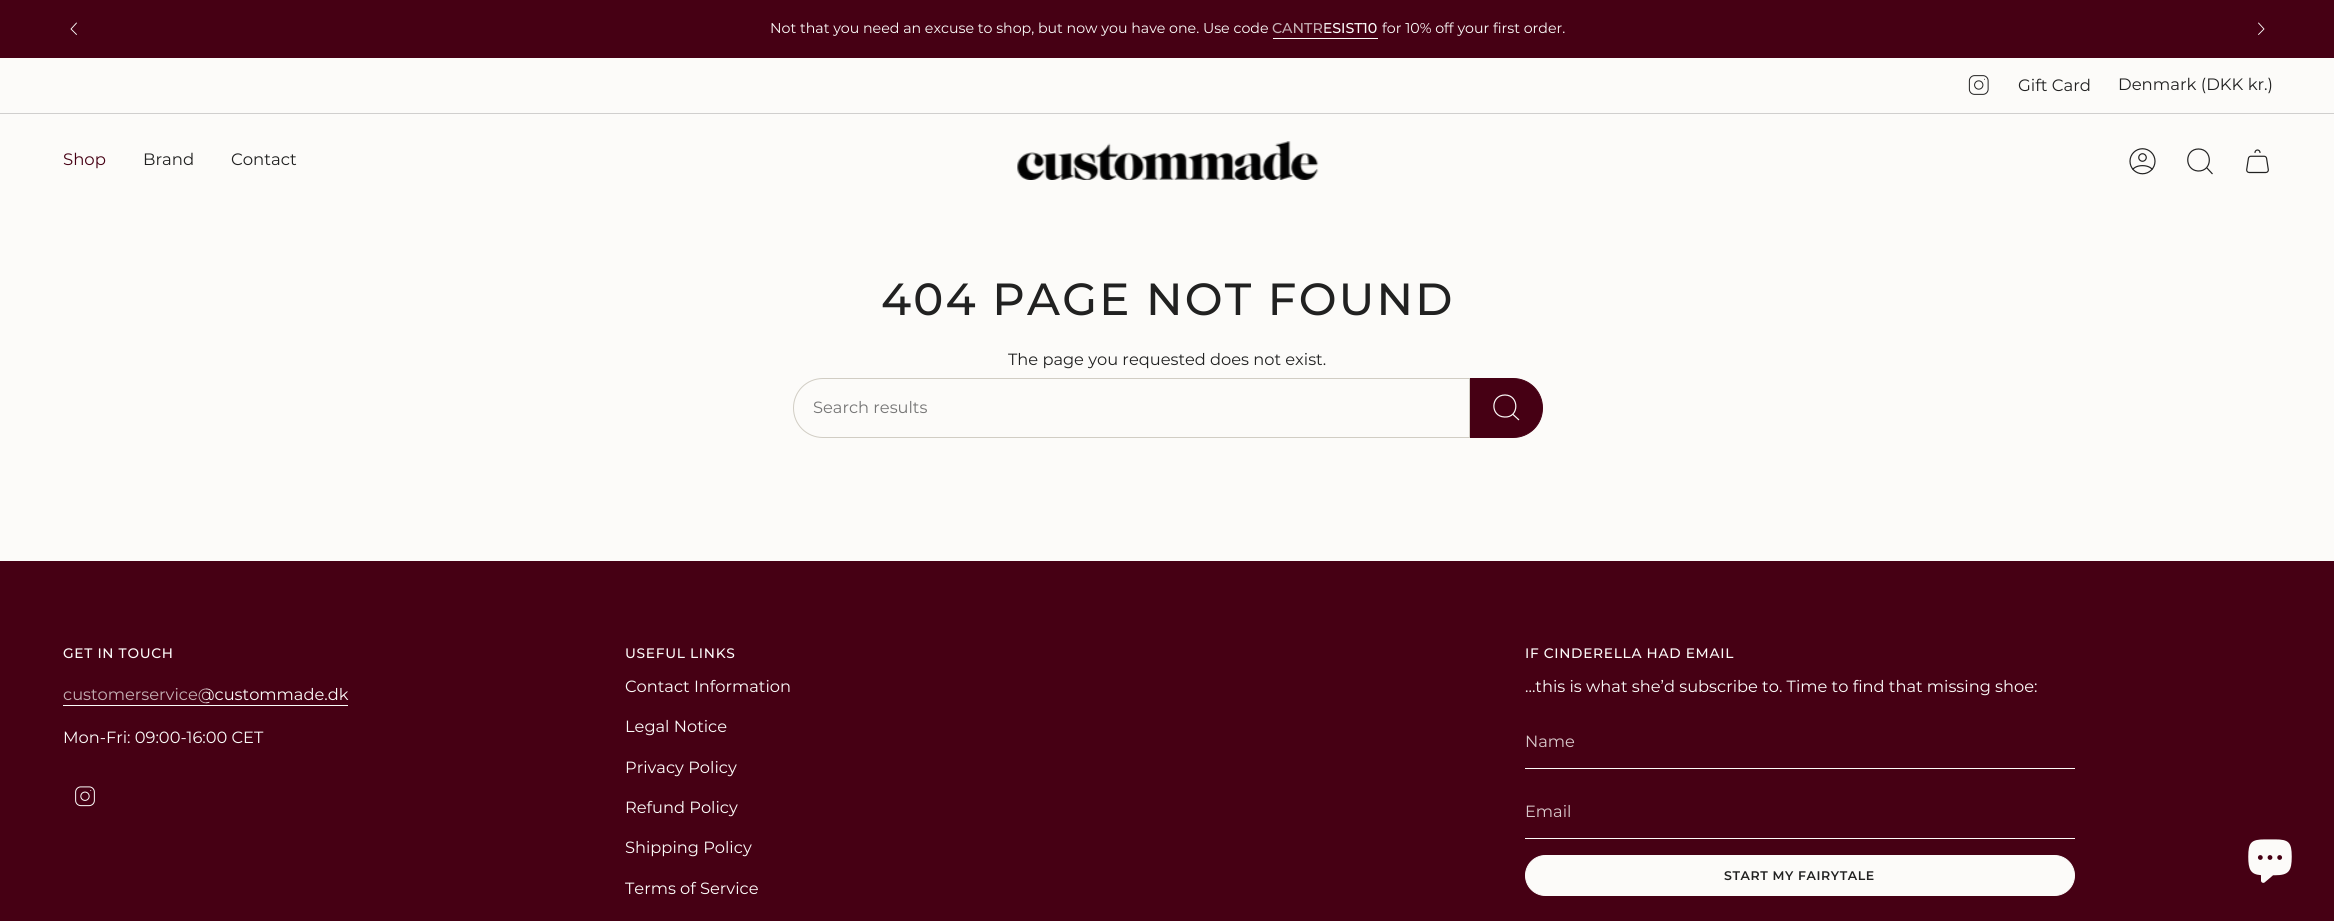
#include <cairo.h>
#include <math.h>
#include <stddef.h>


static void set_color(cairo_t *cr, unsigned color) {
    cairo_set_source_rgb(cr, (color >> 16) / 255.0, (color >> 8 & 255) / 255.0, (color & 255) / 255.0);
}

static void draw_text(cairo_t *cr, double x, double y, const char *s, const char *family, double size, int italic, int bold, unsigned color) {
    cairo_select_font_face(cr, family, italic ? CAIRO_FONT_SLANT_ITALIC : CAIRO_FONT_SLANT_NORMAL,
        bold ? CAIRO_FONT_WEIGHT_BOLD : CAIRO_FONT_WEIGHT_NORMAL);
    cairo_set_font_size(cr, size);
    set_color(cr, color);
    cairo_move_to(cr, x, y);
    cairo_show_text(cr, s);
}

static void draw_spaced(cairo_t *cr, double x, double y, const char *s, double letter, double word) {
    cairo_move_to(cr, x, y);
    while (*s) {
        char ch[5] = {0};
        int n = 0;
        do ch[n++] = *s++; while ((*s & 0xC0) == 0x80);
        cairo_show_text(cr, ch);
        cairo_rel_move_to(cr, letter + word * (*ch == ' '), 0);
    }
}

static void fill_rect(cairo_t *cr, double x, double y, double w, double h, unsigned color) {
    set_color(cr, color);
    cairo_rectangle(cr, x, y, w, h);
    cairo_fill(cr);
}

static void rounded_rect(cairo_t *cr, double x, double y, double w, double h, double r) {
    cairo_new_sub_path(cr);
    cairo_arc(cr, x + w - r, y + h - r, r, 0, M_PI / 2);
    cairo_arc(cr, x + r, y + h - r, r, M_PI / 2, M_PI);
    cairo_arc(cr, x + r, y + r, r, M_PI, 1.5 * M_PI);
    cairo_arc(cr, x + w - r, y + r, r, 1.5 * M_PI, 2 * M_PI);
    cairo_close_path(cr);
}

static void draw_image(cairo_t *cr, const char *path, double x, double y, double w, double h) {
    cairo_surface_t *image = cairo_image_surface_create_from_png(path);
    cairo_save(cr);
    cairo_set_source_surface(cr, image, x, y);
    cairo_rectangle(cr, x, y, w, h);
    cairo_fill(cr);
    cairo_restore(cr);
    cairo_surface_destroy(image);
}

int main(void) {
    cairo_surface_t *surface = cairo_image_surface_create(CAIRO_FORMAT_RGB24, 2334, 921);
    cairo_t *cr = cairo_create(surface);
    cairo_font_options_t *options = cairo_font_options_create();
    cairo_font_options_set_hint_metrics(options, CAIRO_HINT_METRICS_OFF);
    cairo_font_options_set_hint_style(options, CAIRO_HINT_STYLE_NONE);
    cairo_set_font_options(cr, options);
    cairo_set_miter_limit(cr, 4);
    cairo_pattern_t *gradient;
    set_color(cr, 0xFCFBF9);
    cairo_paint(cr);
    fill_rect(cr, 0, 0, 2334, 58, 0x460014);
    cairo_new_path(cr);
    cairo_move_to(cr, 76.5, 23);
    cairo_line_to(cr, 71, 29);
    cairo_line_to(cr, 76.5, 34.5);
    set_color(cr, 0xFCFBF9);
    cairo_set_line_width(cr, 0.9);
    cairo_set_line_cap(cr, CAIRO_LINE_CAP_ROUND);
    cairo_set_line_join(cr, CAIRO_LINE_JOIN_ROUND);
    cairo_stroke(cr);
    draw_text(cr, 770, 33, "Not that you need an excuse to shop, but now you have one. Use code", "Montserrat", 14.2, 0, 0, 0xFCFBF9);
    cairo_select_font_face(cr, "Montserrat Medium", CAIRO_FONT_SLANT_NORMAL, CAIRO_FONT_WEIGHT_NORMAL);
    gradient = cairo_pattern_create_linear(1272, 29, 1378, 29);
    cairo_pattern_add_color_stop_rgba(gradient, 0, 0.773, 0.69, 0.706, 1);
    cairo_pattern_add_color_stop_rgba(gradient, 0.5, 0.773, 0.69, 0.706, 1);
    cairo_pattern_add_color_stop_rgba(gradient, 0.5, 0.988, 0.984, 0.976, 1);
    cairo_pattern_add_color_stop_rgba(gradient, 1, 0.988, 0.984, 0.976, 1);
    cairo_set_source(cr, gradient);
    cairo_pattern_destroy(gradient);
    cairo_move_to(cr, 1272, 33);
    cairo_show_text(cr, "CANTRESIST10");
    fill_rect(cr, 1273, 38, 105, 1, 0xFCFBF9);
    draw_text(cr, 1382, 33, "for 10% off your first order.", "Montserrat", 14.2, 0, 0, 0xFCFBF9);
    cairo_new_path(cr);
    cairo_move_to(cr, 2258.5, 23);
    cairo_line_to(cr, 2264, 29);
    cairo_line_to(cr, 2258.5, 34.5);
    cairo_stroke(cr);
    draw_image(cr, "assets/img1.png", 1968, 75, 21, 20);
    draw_text(cr, 2018, 91, "Gift Card", "Montserrat", 16.5, 0, 0, 0x212121);
    draw_text(cr, 2118, 90, "Denmark (DKK kr.)", "Montserrat", 16.5, 0, 0, 0x212121);
    fill_rect(cr, 0, 113, 2334, 1, 0xD0CFCE);
    draw_text(cr, 63, 165, "Shop", "Montserrat", 16.5, 0, 0, 0x460014);
    draw_text(cr, 143, 165, "Brand", "Montserrat", 16.5, 0, 0, 0x212121);
    draw_text(cr, 231, 165, "Contact", "Montserrat", 16.5, 0, 0, 0x212121);
    draw_image(cr, "assets/img2.png", 1017, 141, 302, 39);
    draw_image(cr, "assets/img3.png", 2129, 148, 27, 27);
    cairo_new_path(cr);
    cairo_move_to(cr, 2198.5, 149);
    cairo_curve_to(cr, 2213, 149, 2213, 171.5, 2198, 171);
    cairo_curve_to(cr, 2184, 170, 2184.5, 149, 2198.5, 149);
    cairo_close_path(cr);
    cairo_move_to(cr, 2206.5, 167.5);
    cairo_line_to(cr, 2212.5, 174);
    cairo_set_line_width(cr, 1.2);
    cairo_set_line_cap(cr, CAIRO_LINE_CAP_BUTT);
    cairo_set_line_join(cr, CAIRO_LINE_JOIN_MITER);
    cairo_stroke(cr);
    draw_image(cr, "assets/img4.png", 2246, 149, 23, 25);
    cairo_select_font_face(cr, "Montserrat Medium", CAIRO_FONT_SLANT_NORMAL, CAIRO_FONT_WEIGHT_NORMAL);
    cairo_set_font_size(cr, 45);
    draw_spaced(cr, 881, 315, "404 PAGE NOT FOUND", 2.25, 0);
    draw_text(cr, 1008, 365, "The page you requested does not exist.", "Montserrat", 16.25, 0, 0, 0x212121);
    cairo_new_path(cr);
    cairo_move_to(cr, 823, 378.5);
    cairo_line_to(cr, 1469.5, 378.5);
    cairo_line_to(cr, 1469.5, 437.5);
    cairo_line_to(cr, 823, 437.5);
    cairo_curve_to(cr, 806.5, 437.5, 793.5, 424.5, 793.5, 408);
    cairo_curve_to(cr, 793.5, 391.5, 806.5, 378.5, 823, 378.5);
    cairo_close_path(cr);
    set_color(cr, 0xD1CDC4);
    cairo_set_line_width(cr, 1);
    cairo_stroke(cr);
    draw_text(cr, 813, 413, "Search results", "Montserrat", 16.25, 0, 0, 0x757575);
    set_color(cr, 0x460014);
    cairo_new_path(cr);
    cairo_move_to(cr, 1470.5, 378.5);
    cairo_line_to(cr, 1513, 378.5);
    cairo_curve_to(cr, 1529.5, 378.5, 1542.5, 391.5, 1542.5, 408);
    cairo_curve_to(cr, 1542.5, 424.5, 1529.5, 437.5, 1513, 437.5);
    cairo_line_to(cr, 1470.5, 437.5);
    cairo_close_path(cr);
    cairo_fill_preserve(cr);
    cairo_stroke(cr);
    cairo_new_path(cr);
    cairo_move_to(cr, 1505, 395);
    cairo_curve_to(cr, 1519.5, 395, 1519.5, 418, 1504.5, 417);
    cairo_curve_to(cr, 1490, 416.5, 1490.5, 395, 1505, 395);
    cairo_close_path(cr);
    cairo_move_to(cr, 1512.5, 414);
    cairo_line_to(cr, 1519, 420);
    set_color(cr, 0xFCFBF9);
    cairo_set_line_width(cr, 1.2);
    cairo_stroke(cr);
    fill_rect(cr, 0, 561, 2334, 360, 0x460014);
    cairo_select_font_face(cr, "Montserrat Medium", CAIRO_FONT_SLANT_NORMAL, CAIRO_FONT_WEIGHT_NORMAL);
    cairo_set_font_size(cr, 13.75);
    set_color(cr, 0xFCFBF9);
    draw_spaced(cr, 63, 658, "GET IN TOUCH", 0.7, 0);
    cairo_select_font_face(cr, "Montserrat", CAIRO_FONT_SLANT_NORMAL, CAIRO_FONT_WEIGHT_NORMAL);
    cairo_set_font_size(cr, 16.25);
    gradient = cairo_pattern_create_linear(63, 695, 348, 695);
    cairo_pattern_add_color_stop_rgba(gradient, 0, 0.773, 0.69, 0.706, 1);
    cairo_pattern_add_color_stop_rgba(gradient, 0.5, 0.773, 0.69, 0.706, 1);
    cairo_pattern_add_color_stop_rgba(gradient, 0.5, 0.988, 0.984, 0.976, 1);
    cairo_pattern_add_color_stop_rgba(gradient, 1, 0.988, 0.984, 0.976, 1);
    cairo_set_source(cr, gradient);
    cairo_pattern_destroy(gradient);
    cairo_move_to(cr, 63, 700);
    cairo_show_text(cr, "customerservice@custommade.dk");
    fill_rect(cr, 63, 705, 285, 1, 0xFCFBF9);
    draw_text(cr, 63, 743, "Mon-Fri: 09:00-16:00 CET", "Montserrat", 16.25, 0, 0, 0xFCFBF9);
    draw_image(cr, "assets/img5.png", 75, 786, 20, 21);
    cairo_select_font_face(cr, "Montserrat Medium", CAIRO_FONT_SLANT_NORMAL, CAIRO_FONT_WEIGHT_NORMAL);
    cairo_set_font_size(cr, 13.75);
    draw_spaced(cr, 625, 658, "USEFUL LINKS", 0.7, 0);
    draw_text(cr, 625, 692, "Contact Information", "Montserrat", 16.25, 0, 0, 0xFCFBF9);
    draw_text(cr, 625, 732, "Legal Notice", "Montserrat", 16.25, 0, 0, 0xFCFBF9);
    draw_text(cr, 625, 773, "Privacy Policy", "Montserrat", 16.25, 0, 0, 0xFCFBF9);
    draw_text(cr, 625, 813, "Refund Policy", "Montserrat", 16.25, 0, 0, 0xFCFBF9);
    draw_text(cr, 625, 853, "Shipping Policy", "Montserrat", 16.25, 0, 0, 0xFCFBF9);
    draw_text(cr, 625, 894, "Terms of Service", "Montserrat", 16.25, 0, 0, 0xFCFBF9);
    cairo_select_font_face(cr, "Montserrat Medium", CAIRO_FONT_SLANT_NORMAL, CAIRO_FONT_WEIGHT_NORMAL);
    cairo_set_font_size(cr, 13.75);
    draw_spaced(cr, 1525, 658, "IF CINDERELLA HAD EMAIL", 0.7, 0);
    draw_text(cr, 1525, 692, "...this is what she’d subscribe to. Time to find that missing shoe:", "Montserrat", 16.25, 0, 0, 0xFCFBF9);
    fill_rect(cr, 1525, 768, 550, 1, 0xFCFBF9);
    draw_text(cr, 1525, 747, "Name", "Montserrat", 16.25, 0, 0, 0xD8C9CB);
    fill_rect(cr, 1525, 838, 550, 1, 0xFCFBF9);
    draw_text(cr, 1525, 817, "Email", "Montserrat", 16.25, 0, 0, 0xD8C9CB);
    set_color(cr, 0xFCFBF9);
    rounded_rect(cr, 1525.5, 855.5, 549, 40, 20);
    cairo_fill_preserve(cr);
    cairo_set_line_width(cr, 1);
    cairo_stroke(cr);
    cairo_select_font_face(cr, "Montserrat SemiBold", CAIRO_FONT_SLANT_NORMAL, CAIRO_FONT_WEIGHT_NORMAL);
    cairo_set_font_size(cr, 12.5);
    set_color(cr, 0x212121);
    draw_spaced(cr, 1724, 880, "START MY FAIRYTALE", 0.6, 0);
    draw_image(cr, "assets/img6.png", 2248, 839, 44, 44);
    cairo_surface_write_to_png(surface, "output.png");
    cairo_font_options_destroy(options);
    cairo_destroy(cr);
    cairo_surface_destroy(surface);
    return 0;
}
